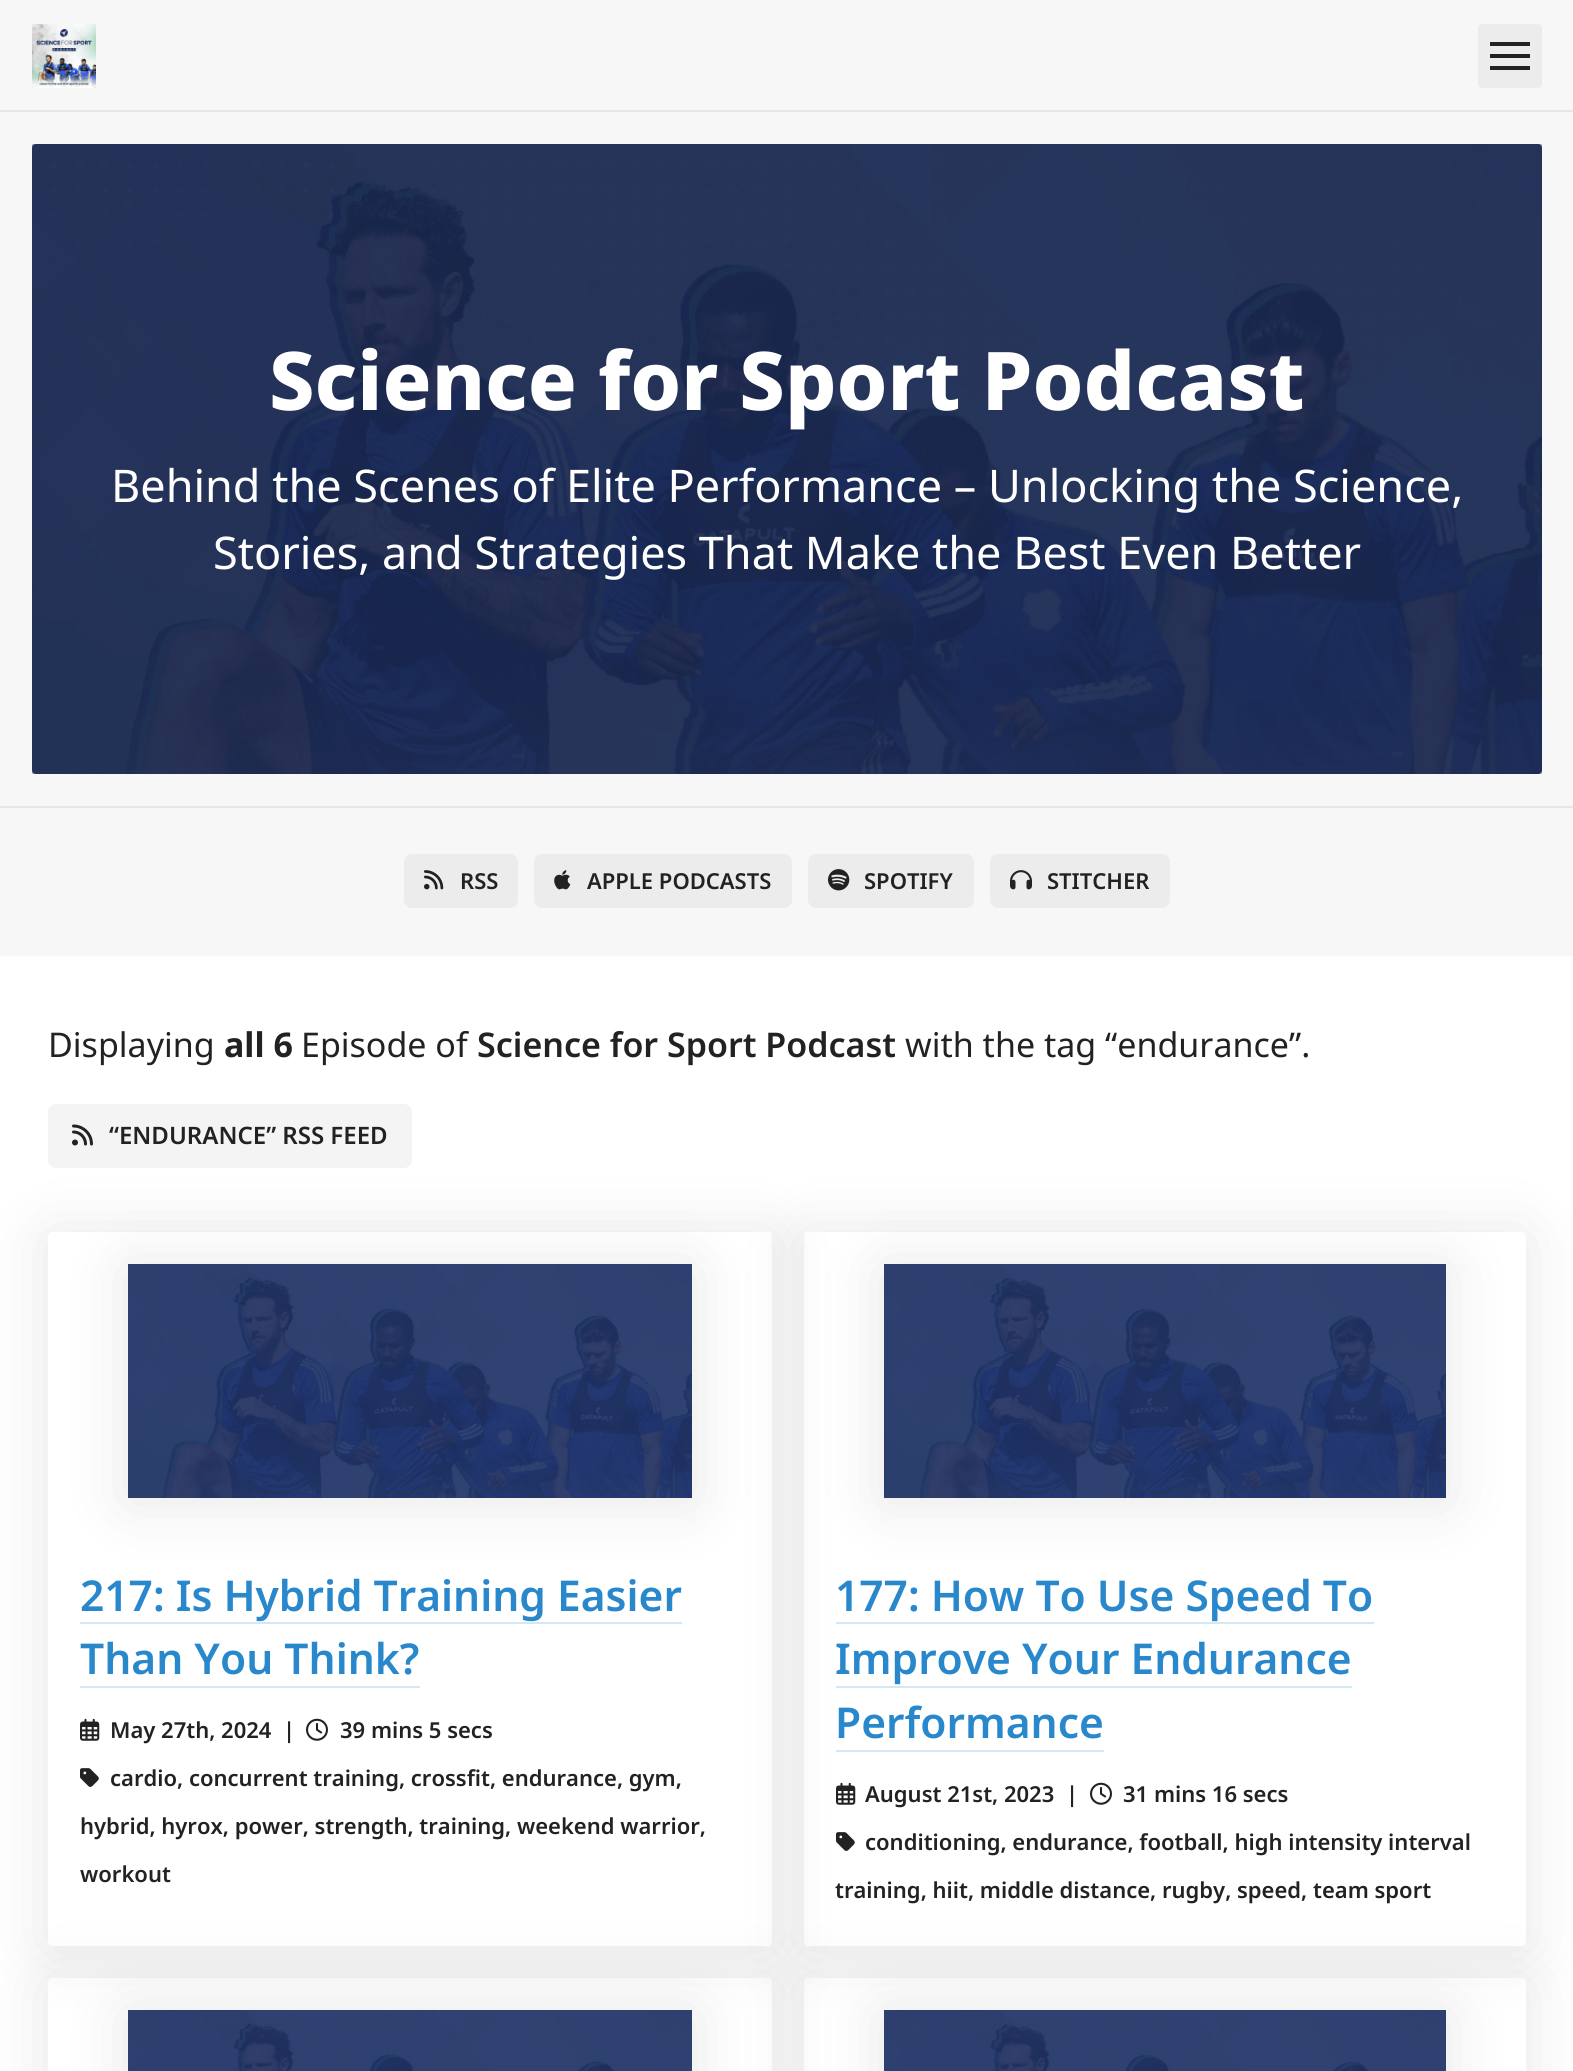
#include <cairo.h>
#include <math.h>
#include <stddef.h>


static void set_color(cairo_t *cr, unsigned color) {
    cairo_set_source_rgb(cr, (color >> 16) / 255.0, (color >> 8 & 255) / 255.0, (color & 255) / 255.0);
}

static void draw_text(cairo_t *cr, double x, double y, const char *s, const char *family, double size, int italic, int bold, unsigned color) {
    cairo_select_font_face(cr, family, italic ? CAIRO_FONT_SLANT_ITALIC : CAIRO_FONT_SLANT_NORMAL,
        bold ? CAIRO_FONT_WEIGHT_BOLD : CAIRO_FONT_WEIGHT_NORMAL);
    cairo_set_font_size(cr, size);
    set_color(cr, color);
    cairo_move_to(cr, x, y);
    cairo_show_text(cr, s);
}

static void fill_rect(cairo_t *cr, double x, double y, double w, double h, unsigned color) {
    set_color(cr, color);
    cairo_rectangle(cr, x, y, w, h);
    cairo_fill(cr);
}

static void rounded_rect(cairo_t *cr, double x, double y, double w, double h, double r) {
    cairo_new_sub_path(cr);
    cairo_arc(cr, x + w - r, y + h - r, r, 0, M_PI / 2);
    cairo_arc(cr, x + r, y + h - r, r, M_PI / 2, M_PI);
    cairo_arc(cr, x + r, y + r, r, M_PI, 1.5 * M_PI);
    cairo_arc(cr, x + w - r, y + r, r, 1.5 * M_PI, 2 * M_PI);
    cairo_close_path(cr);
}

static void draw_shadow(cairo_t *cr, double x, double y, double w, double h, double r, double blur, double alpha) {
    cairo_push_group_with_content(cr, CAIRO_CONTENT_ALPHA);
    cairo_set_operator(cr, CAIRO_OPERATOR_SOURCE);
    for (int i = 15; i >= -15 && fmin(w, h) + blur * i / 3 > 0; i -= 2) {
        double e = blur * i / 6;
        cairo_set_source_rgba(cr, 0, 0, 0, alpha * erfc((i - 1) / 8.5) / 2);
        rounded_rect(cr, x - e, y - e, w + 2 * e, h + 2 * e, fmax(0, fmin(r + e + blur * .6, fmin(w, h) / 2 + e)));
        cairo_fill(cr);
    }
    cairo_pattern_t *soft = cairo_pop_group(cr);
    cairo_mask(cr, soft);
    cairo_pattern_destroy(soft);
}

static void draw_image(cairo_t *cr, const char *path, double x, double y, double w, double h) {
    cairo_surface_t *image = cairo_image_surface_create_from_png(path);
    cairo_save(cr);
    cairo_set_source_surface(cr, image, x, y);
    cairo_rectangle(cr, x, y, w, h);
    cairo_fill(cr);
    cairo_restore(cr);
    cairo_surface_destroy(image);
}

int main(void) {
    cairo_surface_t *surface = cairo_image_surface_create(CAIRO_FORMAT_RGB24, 1573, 2071);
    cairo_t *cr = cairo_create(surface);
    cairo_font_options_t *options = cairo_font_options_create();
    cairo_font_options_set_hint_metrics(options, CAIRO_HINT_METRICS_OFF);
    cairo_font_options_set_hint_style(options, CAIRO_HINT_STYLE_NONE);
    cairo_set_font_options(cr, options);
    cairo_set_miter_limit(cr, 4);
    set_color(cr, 0xFFFFFF);
    cairo_paint(cr);
    fill_rect(cr, 0, 0, 1573, 110, 0xF7F7F7);
    fill_rect(cr, 0, 110, 1573, 2, 0xE6E6E6);
    fill_rect(cr, 32, 24, 64, 64, 0xEBEBEB);
    draw_image(cr, "assets/img1.png", 32, 24, 64, 64);
    set_color(cr, 0xECECEC);
    rounded_rect(cr, 1478, 24, 64, 64, 4);
    cairo_fill(cr);
    fill_rect(cr, 1490, 42, 40, 4, 0x222222);
    fill_rect(cr, 1490, 54, 40, 4, 0x222222);
    fill_rect(cr, 1490, 66, 40, 4, 0x222222);
    fill_rect(cr, 0, 112, 1573, 694, 0xF7F7F7);
    fill_rect(cr, 32, 144, 1510, 630, 0xC6C6C6);
    draw_image(cr, "assets/img2.png", 32, 144, 1510, 630);
    draw_text(cr, 269, 410, "Science for Sport Podcast", "Noto Sans ExtraBold", 81, 0, 0, 0xFFFFFF);
    draw_text(cr, 111, 502, "Behind the Scenes of Elite Performance – Unlocking the Science,", "Noto Sans", 45, 0, 0, 0xFFFFFF);
    draw_text(cr, 213, 569, "Stories, and Strategies That Make the Best Even Better", "Noto Sans", 45, 0, 0, 0xFFFFFF);
    fill_rect(cr, 0, 808, 1573, 148, 0xF7F7F7);
    fill_rect(cr, 0, 806, 1573, 2, 0xE6E6E6);
    set_color(cr, 0xECECEC);
    rounded_rect(cr, 404, 854, 114, 54, 8);
    cairo_fill(cr);
    draw_image(cr, "assets/img3.png", 424, 870, 20, 20);
    draw_text(cr, 460, 889, "RSS", "Noto Sans SemiBold", 22, 0, 0, 0x222222);
    set_color(cr, 0xECECEC);
    rounded_rect(cr, 534, 854, 258, 54, 8);
    cairo_fill(cr);
    draw_image(cr, "assets/img4.png", 554, 870, 17, 20);
    draw_text(cr, 587, 889, "APPLE PODCASTS", "Noto Sans SemiBold", 22, 0, 0, 0x222222);
    set_color(cr, 0xECECEC);
    rounded_rect(cr, 808, 854, 166, 54, 8);
    cairo_fill(cr);
    draw_image(cr, "assets/img5.png", 828, 869, 22, 22);
    draw_text(cr, 864, 889, "SPOTIFY", "Noto Sans SemiBold", 22, 0, 0, 0x222222);
    set_color(cr, 0xECECEC);
    rounded_rect(cr, 990, 854, 180, 54, 8);
    cairo_fill(cr);
    draw_image(cr, "assets/img6.png", 1010, 870, 22, 20);
    draw_text(cr, 1047, 889, "STITCHER", "Noto Sans SemiBold", 22, 0, 0, 0x222222);
    draw_text(cr, 48, 1057, "Displaying", "Noto Sans", 34, 0, 0, 0x222222);
    draw_text(cr, 224, 1057, "all 6", "Noto Sans", 34, 0, 1, 0x222222);
    draw_text(cr, 301, 1057, "Episode of", "Noto Sans", 34, 0, 0, 0x222222);
    draw_text(cr, 477, 1057, "Science for Sport Podcast", "Noto Sans SemiBold", 34, 0, 0, 0x222222);
    draw_text(cr, 905, 1057, "with the tag “endurance”.", "Noto Sans", 34, 0, 0, 0x222222);
    set_color(cr, 0xF4F4F4);
    rounded_rect(cr, 48, 1104, 364, 64, 8);
    cairo_fill(cr);
    draw_image(cr, "assets/img7.png", 72, 1124, 21, 22);
    draw_text(cr, 109, 1144, "“ENDURANCE” RSS FEED", "Noto Sans SemiBold", 24, 0, 0, 0x222222);
    cairo_save(cr);
    cairo_set_fill_rule(cr, CAIRO_FILL_RULE_EVEN_ODD);
    cairo_new_path(cr);
    cairo_move_to(cr, 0, 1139);
    cairo_line_to(cr, 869, 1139);
    cairo_line_to(cr, 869, 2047);
    cairo_line_to(cr, 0, 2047);
    cairo_close_path(cr);
    cairo_move_to(cr, 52, 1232);
    cairo_line_to(cr, 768, 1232);
    cairo_curve_to(cr, 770, 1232, 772, 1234, 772, 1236);
    cairo_line_to(cr, 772, 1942);
    cairo_curve_to(cr, 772, 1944, 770, 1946, 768, 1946);
    cairo_line_to(cr, 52, 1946);
    cairo_curve_to(cr, 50, 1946, 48, 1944, 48, 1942);
    cairo_line_to(cr, 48, 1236);
    cairo_curve_to(cr, 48, 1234, 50, 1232, 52, 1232);
    cairo_close_path(cr);
    cairo_clip(cr);
    set_color(cr, 0x000000);
    draw_shadow(cr, 48, 1236, 724, 714, 4, 32, 0.1);
    cairo_restore(cr);
    set_color(cr, 0x000000);
    draw_shadow(cr, 128, 1268, 564, 234, 0, 32, 0.1);
    draw_image(cr, "assets/img8.png", 128, 1264, 564, 234);
    draw_text(cr, 80, 1611, "217: Is Hybrid Training Easier", "Noto Sans SemiBold", 42.5, 0, 0, 0x2988CC);
    fill_rect(cr, 80, 1622, 602, 2, 0xD4E7F5);
    draw_text(cr, 80, 1674, "Than You Think?", "Noto Sans SemiBold", 42.5, 0, 0, 0x2988CC);
    fill_rect(cr, 80, 1686, 340, 2, 0xD4E7F5);
    draw_image(cr, "assets/img9.png", 80, 1718, 20, 23);
    draw_text(cr, 110, 1738, "May 27th, 2024", "Noto Sans SemiBold", 22, 0, 0, 0x222222);
    draw_text(cr, 283, 1738, "|", "Noto Sans SemiBold", 22, 0, 0, 0x222222);
    draw_image(cr, "assets/img10.png", 306, 1718, 22, 23);
    draw_text(cr, 340, 1738, "39 mins 5 secs", "Noto Sans SemiBold", 22, 0, 0, 0x222222);
    draw_image(cr, "assets/img11.png", 80, 1768, 19, 19);
    draw_text(cr, 110, 1786, "cardio, concurrent training, crossfit, endurance, gym,", "Noto Sans SemiBold", 22, 0, 0, 0x222222);
    draw_text(cr, 80, 1834, "hybrid, hyrox, power, strength, training, weekend warrior,", "Noto Sans SemiBold", 22, 0, 0, 0x222222);
    draw_text(cr, 80, 1882, "workout", "Noto Sans SemiBold", 22, 0, 0, 0x222222);
    cairo_save(cr);
    cairo_set_fill_rule(cr, CAIRO_FILL_RULE_EVEN_ODD);
    cairo_new_path(cr);
    cairo_move_to(cr, 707, 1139);
    cairo_line_to(cr, 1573, 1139);
    cairo_line_to(cr, 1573, 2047);
    cairo_line_to(cr, 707, 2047);
    cairo_close_path(cr);
    cairo_move_to(cr, 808, 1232);
    cairo_line_to(cr, 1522, 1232);
    cairo_curve_to(cr, 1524, 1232, 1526, 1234, 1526, 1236);
    cairo_line_to(cr, 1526, 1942);
    cairo_curve_to(cr, 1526, 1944, 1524, 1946, 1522, 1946);
    cairo_line_to(cr, 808, 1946);
    cairo_curve_to(cr, 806, 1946, 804, 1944, 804, 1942);
    cairo_line_to(cr, 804, 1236);
    cairo_curve_to(cr, 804, 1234, 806, 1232, 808, 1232);
    cairo_close_path(cr);
    cairo_clip(cr);
    set_color(cr, 0x000000);
    draw_shadow(cr, 804, 1236, 722, 714, 4, 32, 0.1);
    cairo_restore(cr);
    set_color(cr, 0x000000);
    draw_shadow(cr, 884, 1268, 562, 234, 0, 32, 0.1);
    draw_image(cr, "assets/img12.png", 884, 1264, 562, 234);
    draw_text(cr, 835, 1611, "177: How To Use Speed To", "Noto Sans SemiBold", 42.5, 0, 0, 0x2988CC);
    fill_rect(cr, 836, 1622, 538, 2, 0xD4E7F5);
    draw_text(cr, 835, 1674, "Improve Your Endurance", "Noto Sans SemiBold", 42.5, 0, 0, 0x2988CC);
    fill_rect(cr, 836, 1686, 516, 2, 0xD4E7F5);
    draw_text(cr, 835, 1738, "Performance", "Noto Sans SemiBold", 42.5, 0, 0, 0x2988CC);
    fill_rect(cr, 836, 1750, 268, 2, 0xD4E7F5);
    draw_image(cr, "assets/img13.png", 836, 1782, 20, 23);
    draw_text(cr, 865, 1802, "August 21st, 2023", "Noto Sans SemiBold", 22, 0, 0, 0x222222);
    draw_text(cr, 1066, 1802, "|", "Noto Sans SemiBold", 22, 0, 0, 0x222222);
    draw_image(cr, "assets/img10.png", 1090, 1782, 22, 23);
    draw_text(cr, 1123, 1802, "31 mins 16 secs", "Noto Sans SemiBold", 22, 0, 0, 0x222222);
    draw_image(cr, "assets/img14.png", 836, 1832, 19, 19);
    draw_text(cr, 865, 1850, "conditioning, endurance, football, high intensity interval", "Noto Sans SemiBold", 22, 0, 0, 0x222222);
    draw_text(cr, 835, 1898, "training, hiit, middle distance, rugby, speed, team sport", "Noto Sans SemiBold", 22, 0, 0, 0x222222);
    cairo_save(cr);
    cairo_set_fill_rule(cr, CAIRO_FILL_RULE_EVEN_ODD);
    cairo_new_path(cr);
    cairo_move_to(cr, 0, 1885);
    cairo_line_to(cr, 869, 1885);
    cairo_line_to(cr, 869, 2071);
    cairo_line_to(cr, 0, 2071);
    cairo_close_path(cr);
    cairo_move_to(cr, 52, 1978);
    cairo_line_to(cr, 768, 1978);
    cairo_curve_to(cr, 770, 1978, 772, 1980, 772, 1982);
    cairo_line_to(cr, 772, 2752);
    cairo_curve_to(cr, 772, 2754, 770, 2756, 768, 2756);
    cairo_line_to(cr, 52, 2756);
    cairo_curve_to(cr, 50, 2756, 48, 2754, 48, 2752);
    cairo_line_to(cr, 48, 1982);
    cairo_curve_to(cr, 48, 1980, 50, 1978, 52, 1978);
    cairo_close_path(cr);
    cairo_clip(cr);
    set_color(cr, 0x000000);
    draw_shadow(cr, 48, 1982, 724, 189, 4, 32, 0.1);
    cairo_restore(cr);
    set_color(cr, 0x000000);
    draw_shadow(cr, 128, 2014, 564, 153, 0, 32, 0.1);
    draw_image(cr, "assets/img15.png", 128, 2010, 564, 61);
    cairo_save(cr);
    cairo_set_fill_rule(cr, CAIRO_FILL_RULE_EVEN_ODD);
    cairo_new_path(cr);
    cairo_move_to(cr, 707, 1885);
    cairo_line_to(cr, 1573, 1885);
    cairo_line_to(cr, 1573, 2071);
    cairo_line_to(cr, 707, 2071);
    cairo_close_path(cr);
    cairo_move_to(cr, 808, 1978);
    cairo_line_to(cr, 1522, 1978);
    cairo_curve_to(cr, 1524, 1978, 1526, 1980, 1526, 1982);
    cairo_line_to(cr, 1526, 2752);
    cairo_curve_to(cr, 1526, 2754, 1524, 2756, 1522, 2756);
    cairo_line_to(cr, 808, 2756);
    cairo_curve_to(cr, 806, 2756, 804, 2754, 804, 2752);
    cairo_line_to(cr, 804, 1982);
    cairo_curve_to(cr, 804, 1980, 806, 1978, 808, 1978);
    cairo_close_path(cr);
    cairo_clip(cr);
    draw_shadow(cr, 804, 1982, 722, 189, 4, 32, 0.1);
    cairo_restore(cr);
    draw_shadow(cr, 884, 2014, 562, 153, 0, 32, 0.1);
    draw_image(cr, "assets/img16.png", 884, 2010, 562, 61);
    cairo_surface_write_to_png(surface, "output.png");
    cairo_font_options_destroy(options);
    cairo_destroy(cr);
    cairo_surface_destroy(surface);
    return 0;
}
